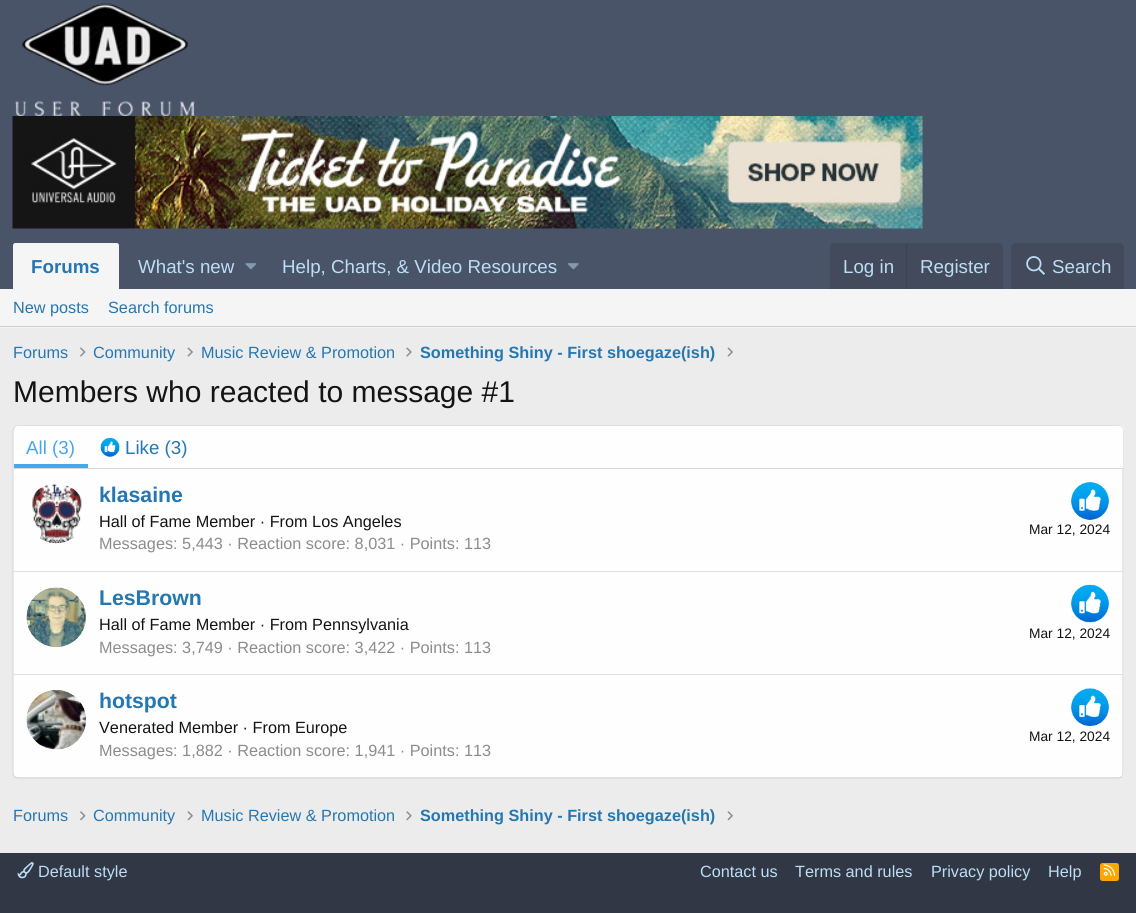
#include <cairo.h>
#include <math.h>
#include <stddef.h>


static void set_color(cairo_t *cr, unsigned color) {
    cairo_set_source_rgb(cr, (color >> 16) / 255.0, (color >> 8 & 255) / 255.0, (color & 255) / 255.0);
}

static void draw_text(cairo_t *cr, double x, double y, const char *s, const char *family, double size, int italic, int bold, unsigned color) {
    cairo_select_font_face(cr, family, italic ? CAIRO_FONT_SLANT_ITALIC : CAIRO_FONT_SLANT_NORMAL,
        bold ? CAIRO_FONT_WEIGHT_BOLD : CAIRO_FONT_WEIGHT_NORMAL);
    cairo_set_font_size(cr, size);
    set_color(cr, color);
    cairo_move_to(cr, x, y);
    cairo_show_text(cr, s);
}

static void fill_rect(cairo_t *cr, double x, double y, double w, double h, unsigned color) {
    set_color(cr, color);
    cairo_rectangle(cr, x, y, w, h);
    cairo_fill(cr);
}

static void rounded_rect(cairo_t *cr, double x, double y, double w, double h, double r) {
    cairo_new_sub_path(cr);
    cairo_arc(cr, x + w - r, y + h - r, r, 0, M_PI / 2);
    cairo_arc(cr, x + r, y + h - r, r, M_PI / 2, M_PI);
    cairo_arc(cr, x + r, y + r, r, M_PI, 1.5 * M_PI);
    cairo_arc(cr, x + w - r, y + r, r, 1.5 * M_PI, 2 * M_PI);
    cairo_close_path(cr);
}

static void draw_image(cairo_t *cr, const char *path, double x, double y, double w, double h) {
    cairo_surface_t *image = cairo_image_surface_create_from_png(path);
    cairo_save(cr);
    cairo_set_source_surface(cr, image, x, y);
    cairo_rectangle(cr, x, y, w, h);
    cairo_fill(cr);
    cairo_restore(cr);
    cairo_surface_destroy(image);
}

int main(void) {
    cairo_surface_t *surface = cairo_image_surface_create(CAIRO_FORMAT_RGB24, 1136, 913);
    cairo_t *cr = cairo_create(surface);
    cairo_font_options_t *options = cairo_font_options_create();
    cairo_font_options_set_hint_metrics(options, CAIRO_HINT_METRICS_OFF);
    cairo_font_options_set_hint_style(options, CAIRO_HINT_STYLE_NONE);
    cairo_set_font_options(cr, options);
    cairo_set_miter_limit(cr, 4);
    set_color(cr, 0xECECEC);
    cairo_paint(cr);
    fill_rect(cr, 0, 0, 1136, 289, 0x4A5468);
    draw_image(cr, "assets/img1.png", 15, 3, 180, 113);
    draw_image(cr, "assets/img2.png", 12, 116, 911, 113);
    set_color(cr, 0xF5F5F5);
    cairo_new_path(cr);
    cairo_move_to(cr, 15.5, 243);
    cairo_line_to(cr, 116.5, 243);
    cairo_curve_to(cr, 118, 243, 119, 244, 119, 245.5);
    cairo_line_to(cr, 119, 289);
    cairo_line_to(cr, 13, 289);
    cairo_line_to(cr, 13, 245.5);
    cairo_curve_to(cr, 13, 244, 14, 243, 15.5, 243);
    cairo_close_path(cr);
    cairo_fill(cr);
    draw_text(cr, 31, 273, "Forums", "Liberation Sans", 18.75, 0, 1, 0x2577B1);
    draw_text(cr, 138, 273, "What's new", "Liberation Sans", 18.75, 0, 0, 0xBCDEF5);
    draw_image(cr, "assets/img3.png", 245, 263, 12, 7);
    draw_text(cr, 282, 273, "Help, Charts, & Video Resources", "Liberation Sans", 18.75, 0, 0, 0xBCDEF5);
    draw_image(cr, "assets/img4.png", 568, 263, 11, 7);
    set_color(cr, 0x424A5B);
    cairo_new_path(cr);
    cairo_move_to(cr, 835, 243);
    cairo_line_to(cr, 998, 243);
    cairo_curve_to(cr, 1001, 243, 1003, 245, 1003, 248);
    cairo_line_to(cr, 1003, 289);
    cairo_line_to(cr, 830, 289);
    cairo_line_to(cr, 830, 248);
    cairo_curve_to(cr, 830, 245, 832, 243, 835, 243);
    cairo_close_path(cr);
    cairo_fill(cr);
    draw_text(cr, 843, 273, "Log in", "Liberation Sans", 18.75, 0, 0, 0xBCDEF5);
    fill_rect(cr, 906, 243, 1, 46, 0x3B4250);
    draw_text(cr, 920, 273, "Register", "Liberation Sans", 18.75, 0, 0, 0xBCDEF5);
    set_color(cr, 0x424A5B);
    cairo_new_path(cr);
    cairo_move_to(cr, 1016, 243);
    cairo_line_to(cr, 1119, 243);
    cairo_curve_to(cr, 1122, 243, 1124, 245, 1124, 248);
    cairo_line_to(cr, 1124, 289);
    cairo_line_to(cr, 1011, 289);
    cairo_line_to(cr, 1011, 248);
    cairo_curve_to(cr, 1011, 245, 1013, 243, 1016, 243);
    cairo_close_path(cr);
    cairo_fill(cr);
    draw_image(cr, "assets/img5.png", 1026, 256, 19, 19);
    draw_text(cr, 1052, 273, "Search", "Liberation Sans", 18.75, 0, 0, 0xBCDEF5);
    fill_rect(cr, 0, 289, 1136, 39, 0xF5F5F5);
    fill_rect(cr, 0, 326, 1136, 1, 0xCBCBCB);
    draw_text(cr, 13, 313, "New posts", "Liberation Sans", 16.25, 0, 0, 0x2577B1);
    draw_text(cr, 108, 313, "Search forums", "Liberation Sans", 16.25, 0, 0, 0x2577B1);
    draw_text(cr, 13, 358, "Forums", "Liberation Sans", 16.25, 0, 0, 0x2577B1);
    draw_image(cr, "assets/img6.png", 80, 347, 6, 10);
    draw_text(cr, 93, 358, "Community", "Liberation Sans", 16.25, 0, 0, 0x2577B1);
    draw_image(cr, "assets/img7.png", 187, 347, 6, 10);
    draw_text(cr, 201, 358, "Music Review & Promotion", "Liberation Sans", 16.25, 0, 0, 0x2577B1);
    draw_image(cr, "assets/img8.png", 406, 347, 6, 10);
    draw_text(cr, 420, 358, "Something Shiny - First shoegaze(ish)", "Liberation Sans", 16.25, 0, 1, 0x2577B1);
    draw_image(cr, "assets/img7.png", 727, 347, 6, 10);
    draw_text(cr, 13, 402, "Members who reacted to message #1", "Liberation Sans", 30, 0, 0, 0x141414);
    set_color(cr, 0xFEFEFE);
    rounded_rect(cr, 13, 425, 1111, 354, 5);
    cairo_fill(cr);
    cairo_new_path(cr);
    cairo_move_to(cr, 14.5, 427);
    cairo_line_to(cr, 17.5, 425.5);
    cairo_line_to(cr, 1119, 425.5);
    cairo_line_to(cr, 1122, 427);
    set_color(cr, 0xDFDFDF);
    cairo_set_line_width(cr, 1.2);
    cairo_stroke(cr);
    cairo_new_path(cr);
    cairo_move_to(cr, 1122, 427);
    cairo_line_to(cr, 1123, 430);
    cairo_line_to(cr, 1123, 774);
    cairo_line_to(cr, 1122, 777);
    set_color(cr, 0xD8D8D8);
    cairo_stroke(cr);
    cairo_new_path(cr);
    cairo_move_to(cr, 1122, 777);
    cairo_line_to(cr, 1119, 778);
    cairo_line_to(cr, 17.5, 778);
    cairo_line_to(cr, 14.5, 777);
    set_color(cr, 0xCBCBCB);
    cairo_stroke(cr);
    cairo_new_path(cr);
    cairo_move_to(cr, 14.5, 777);
    cairo_line_to(cr, 13, 774);
    cairo_line_to(cr, 13, 430);
    cairo_line_to(cr, 14.5, 427);
    set_color(cr, 0xD8D8D8);
    cairo_stroke(cr);
    set_color(cr, 0xFEFEFE);
    cairo_new_path(cr);
    cairo_move_to(cr, 18, 426);
    cairo_line_to(cr, 1119, 426);
    cairo_curve_to(cr, 1121, 426, 1123, 428, 1123, 430);
    cairo_line_to(cr, 1123, 469);
    cairo_line_to(cr, 14, 469);
    cairo_line_to(cr, 14, 430);
    cairo_curve_to(cr, 14, 428, 16, 426, 18, 426);
    cairo_close_path(cr);
    cairo_fill(cr);
    fill_rect(cr, 14, 468, 1109, 1, 0xD8D8D8);
    fill_rect(cr, 14, 464, 74, 4, 0x47A7EB);
    draw_text(cr, 26, 454, "All (3)", "Liberation Sans", 18.75, 0, 0, 0x47A7EB);
    draw_image(cr, "assets/img9.png", 100, 438, 20, 19);
    draw_text(cr, 125, 454, "Like (3)", "Liberation Sans", 18.75, 0, 0, 0x2577B1);
    draw_image(cr, "assets/img10.png", 32, 484, 50, 60);
    draw_text(cr, 99, 502, "klasaine", "Liberation Sans", 21.25, 0, 1, 0x2577B1);
    draw_text(cr, 99, 527, "Hall of Fame Member · From Los Angeles", "Liberation Sans", 16.25, 0, 0, 0x141414);
    draw_image(cr, "assets/img11.png", 1071, 482, 38, 38);
    draw_text(cr, 1029, 534, "Mar 12, 2024", "Liberation Sans", 13.75, 0, 0, 0x141414);
    draw_text(cr, 99, 549, "Messages: 5,443 · Reaction score: 8,031 · Points: 113", "Liberation Sans", 16.25, 0, 0, 0x8C8C8C);
    fill_rect(cr, 14, 571, 1109, 1, 0xDFDFDF);
    draw_image(cr, "assets/img12.png", 26, 587, 60, 60);
    draw_text(cr, 99, 605, "LesBrown", "Liberation Sans", 21.25, 0, 1, 0x2577B1);
    draw_text(cr, 99, 630, "Hall of Fame Member · From Pennsylvania", "Liberation Sans", 16.25, 0, 0, 0x141414);
    draw_image(cr, "assets/img13.png", 1071, 584, 38, 39);
    draw_text(cr, 1029, 638, "Mar 12, 2024", "Liberation Sans", 13.75, 0, 0, 0x141414);
    draw_text(cr, 99, 653, "Messages: 3,749 · Reaction score: 3,422 · Points: 113", "Liberation Sans", 16.25, 0, 0, 0x8C8C8C);
    fill_rect(cr, 14, 674, 1109, 1, 0xDFDFDF);
    draw_image(cr, "assets/img14.png", 26, 690, 60, 60);
    draw_text(cr, 99, 708, "hotspot", "Liberation Sans", 21.25, 0, 1, 0x2577B1);
    draw_text(cr, 99, 733, "Venerated Member · From Europe", "Liberation Sans", 16.25, 0, 0, 0x141414);
    draw_image(cr, "assets/img15.png", 1071, 688, 38, 39);
    draw_text(cr, 1029, 741, "Mar 12, 2024", "Liberation Sans", 13.75, 0, 0, 0x141414);
    draw_text(cr, 99, 756, "Messages: 1,882 · Reaction score: 1,941 · Points: 113", "Liberation Sans", 16.25, 0, 0, 0x8C8C8C);
    draw_text(cr, 13, 821, "Forums", "Liberation Sans", 16.25, 0, 0, 0x2577B1);
    draw_image(cr, "assets/img16.png", 80, 811, 6, 10);
    draw_text(cr, 93, 821, "Community", "Liberation Sans", 16.25, 0, 0, 0x2577B1);
    draw_image(cr, "assets/img17.png", 187, 811, 6, 10);
    draw_text(cr, 201, 821, "Music Review & Promotion", "Liberation Sans", 16.25, 0, 0, 0x2577B1);
    draw_image(cr, "assets/img18.png", 406, 811, 6, 10);
    draw_text(cr, 420, 821, "Something Shiny - First shoegaze(ish)", "Liberation Sans", 16.25, 0, 1, 0x2577B1);
    draw_image(cr, "assets/img17.png", 727, 811, 6, 10);
    fill_rect(cr, 0, 853, 1136, 60, 0x313744);
    draw_image(cr, "assets/img19.png", 17, 862, 17, 17);
    draw_text(cr, 38, 877, "Default style", "Liberation Sans", 16.25, 0, 0, 0xBCDEF5);
    draw_text(cr, 700, 877, "Contact us", "Liberation Sans", 16.25, 0, 0, 0xBCDEF5);
    draw_text(cr, 795, 877, "Terms and rules", "Liberation Sans", 16.25, 0, 0, 0xBCDEF5);
    draw_text(cr, 931, 877, "Privacy policy", "Liberation Sans", 16.25, 0, 0, 0xBCDEF5);
    draw_text(cr, 1048, 877, "Help", "Liberation Sans", 16.25, 0, 0, 0xBCDEF5);
    set_color(cr, 0xFFA500);
    rounded_rect(cr, 1100, 863, 19, 18, 2.5);
    cairo_fill(cr);
    draw_image(cr, "assets/img20.png", 1103, 864, 13, 12);
    cairo_surface_write_to_png(surface, "output.png");
    cairo_font_options_destroy(options);
    cairo_destroy(cr);
    cairo_surface_destroy(surface);
    return 0;
}
